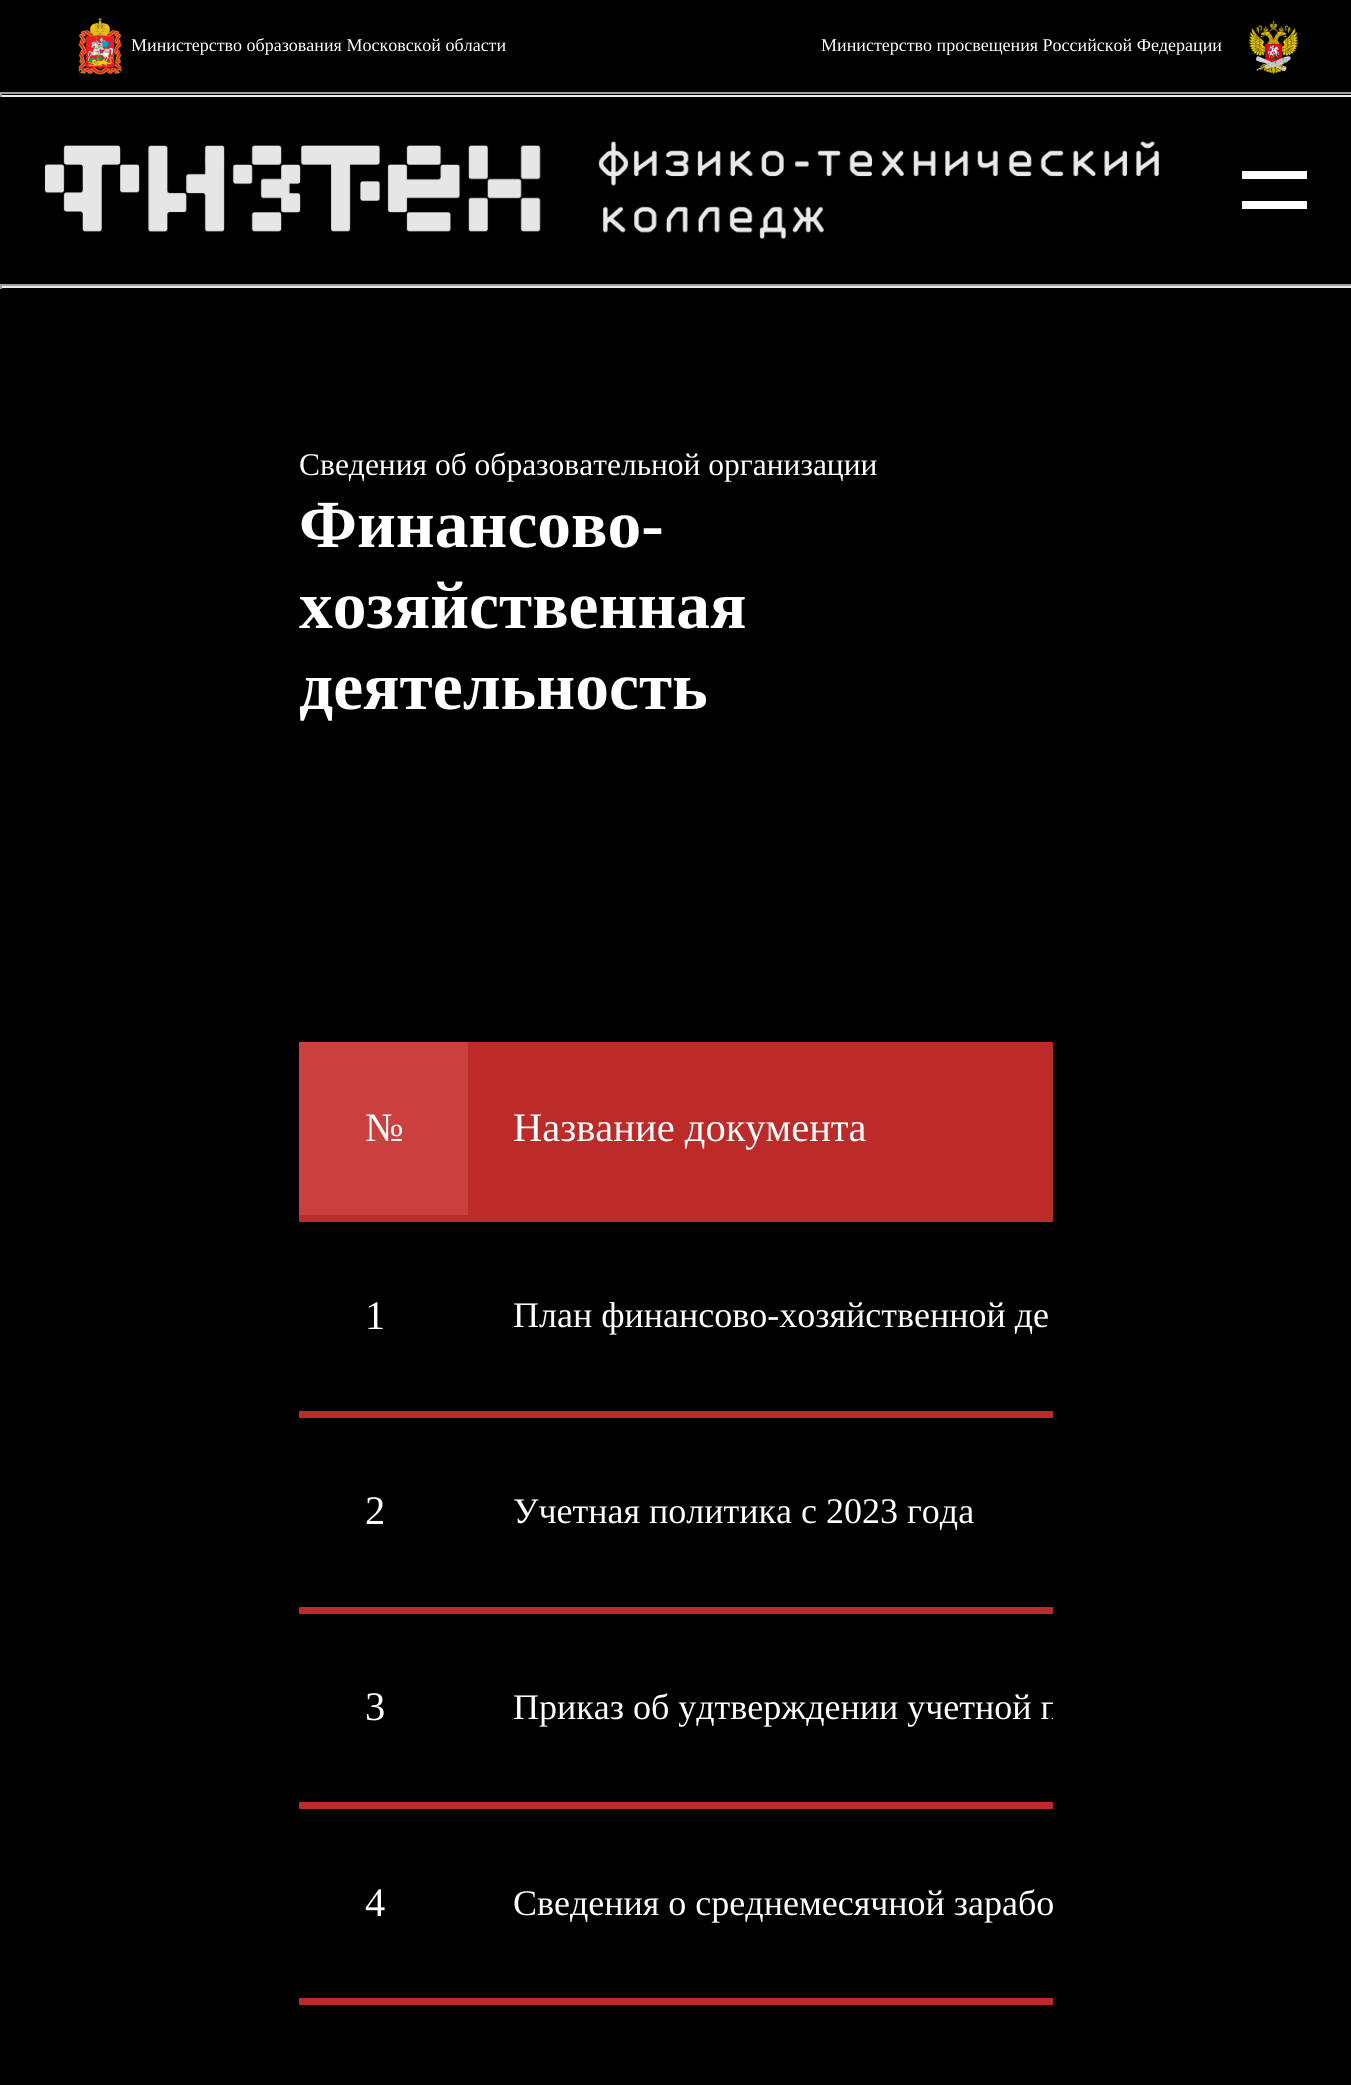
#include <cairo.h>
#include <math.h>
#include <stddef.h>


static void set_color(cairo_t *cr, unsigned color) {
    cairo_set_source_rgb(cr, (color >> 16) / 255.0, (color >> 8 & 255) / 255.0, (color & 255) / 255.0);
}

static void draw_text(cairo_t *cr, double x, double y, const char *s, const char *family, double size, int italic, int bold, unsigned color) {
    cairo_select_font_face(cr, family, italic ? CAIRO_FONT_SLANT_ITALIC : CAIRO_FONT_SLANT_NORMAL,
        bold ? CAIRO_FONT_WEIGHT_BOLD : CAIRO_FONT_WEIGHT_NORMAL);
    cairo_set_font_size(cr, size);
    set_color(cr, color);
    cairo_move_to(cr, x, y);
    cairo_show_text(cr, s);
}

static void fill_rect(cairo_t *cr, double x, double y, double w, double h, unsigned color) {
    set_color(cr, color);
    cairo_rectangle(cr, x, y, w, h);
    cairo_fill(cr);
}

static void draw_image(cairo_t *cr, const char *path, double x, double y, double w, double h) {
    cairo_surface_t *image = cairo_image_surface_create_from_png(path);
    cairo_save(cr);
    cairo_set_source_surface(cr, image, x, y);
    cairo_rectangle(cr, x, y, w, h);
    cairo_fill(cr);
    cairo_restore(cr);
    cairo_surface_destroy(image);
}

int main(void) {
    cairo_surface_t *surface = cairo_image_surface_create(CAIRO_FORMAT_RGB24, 1351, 2085);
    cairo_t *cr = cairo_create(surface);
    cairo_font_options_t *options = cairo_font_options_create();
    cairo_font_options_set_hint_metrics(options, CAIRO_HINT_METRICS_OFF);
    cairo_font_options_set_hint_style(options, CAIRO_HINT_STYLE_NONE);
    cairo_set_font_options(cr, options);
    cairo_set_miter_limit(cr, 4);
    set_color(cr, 0x000000);
    cairo_paint(cr);
    draw_image(cr, "assets/img1.png", 78, 18, 44, 57);
    draw_text(cr, 131, 51, "Министерство образования Московской области", "Liberation Serif", 18, 0, 0, 0xFFFFFF);
    draw_text(cr, 821, 51, "Министерство просвещения Российской Федерации", "Liberation Serif", 18, 0, 0, 0xFFFFFF);
    draw_image(cr, "assets/img2.png", 1248, 20, 51, 54);
    fill_rect(cr, 0, 92, 1351, 2, 0x9F9F9F);
    fill_rect(cr, 0, 95, 1351, 2, 0xEEEEEE);
    fill_rect(cr, 0, 92, 2, 5, 0x9F9F9F);
    draw_image(cr, "assets/img3.png", 45, 141, 1114, 98);
    fill_rect(cr, 1242, 171, 65, 8, 0xFFFFFF);
    fill_rect(cr, 1242, 201, 65, 8, 0xFFFFFF);
    fill_rect(cr, 0, 284, 1351, 2, 0x9F9F9F);
    fill_rect(cr, 0, 286, 1351, 2, 0xEEEEEE);
    fill_rect(cr, 0, 284, 2, 5, 0x9F9F9F);
    draw_text(cr, 299, 475, "Сведения об образовательной организации", "Liberation Serif", 31.5, 0, 0, 0xFFFFFF);
    draw_text(cr, 299, 547, "Финансово-", "Liberation Serif", 67.5, 0, 1, 0xFFFFFF);
    draw_text(cr, 299, 628, "хозяйственная", "Liberation Serif", 67.5, 0, 1, 0xFFFFFF);
    draw_text(cr, 299, 709, "деятельность", "Liberation Serif", 67.5, 0, 1, 0xFFFFFF);
    fill_rect(cr, 299, 1042, 169, 173, 0xCC3F3F);
    fill_rect(cr, 299, 1215, 169, 7, 0xBD2A2A);
    draw_text(cr, 365, 1141, "№", "Liberation Serif", 40.5, 0, 0, 0xFFFFFF);
    fill_rect(cr, 468, 1042, 585, 180, 0xBD2A2A);
    draw_text(cr, 513, 1141, "Название документа", "Liberation Serif", 40.5, 0, 0, 0xFFFFFF);
    fill_rect(cr, 299, 1411, 754, 7, 0xBD2A2A);
    draw_text(cr, 365, 1329, "1", "Liberation Serif", 40.5, 0, 0, 0xFFFFFF);
    draw_text(cr, 513, 1327, "План финансово-хозяйственной де", "Liberation Serif", 36, 0, 0, 0xFFFFFF);
    fill_rect(cr, 299, 1607, 754, 7, 0xBD2A2A);
    draw_text(cr, 365, 1524, "2", "Liberation Serif", 40.5, 0, 0, 0xFFFFFF);
    draw_text(cr, 513, 1523, "Учетная политика с 2023 года", "Liberation Serif", 36, 0, 0, 0xFFFFFF);
    fill_rect(cr, 299, 1802, 754, 7, 0xBD2A2A);
    draw_text(cr, 365, 1720, "3", "Liberation Serif", 40.5, 0, 0, 0xFFFFFF);
    cairo_save(cr);
    cairo_rectangle(cr, 299, 1042, 754, 963);
    cairo_clip(cr);
    draw_text(cr, 513, 1719, "Приказ об удтверждении учетной п", "Liberation Serif", 36, 0, 0, 0xFFFFFF);
    cairo_restore(cr);
    fill_rect(cr, 299, 1998, 754, 7, 0xBD2A2A);
    draw_text(cr, 365, 1916, "4", "Liberation Serif", 40.5, 0, 0, 0xFFFFFF);
    draw_text(cr, 513, 1915, "Сведения о среднемесячной зарабо", "Liberation Serif", 36, 0, 0, 0xFFFFFF);
    cairo_surface_write_to_png(surface, "output.png");
    cairo_font_options_destroy(options);
    cairo_destroy(cr);
    cairo_surface_destroy(surface);
    return 0;
}
